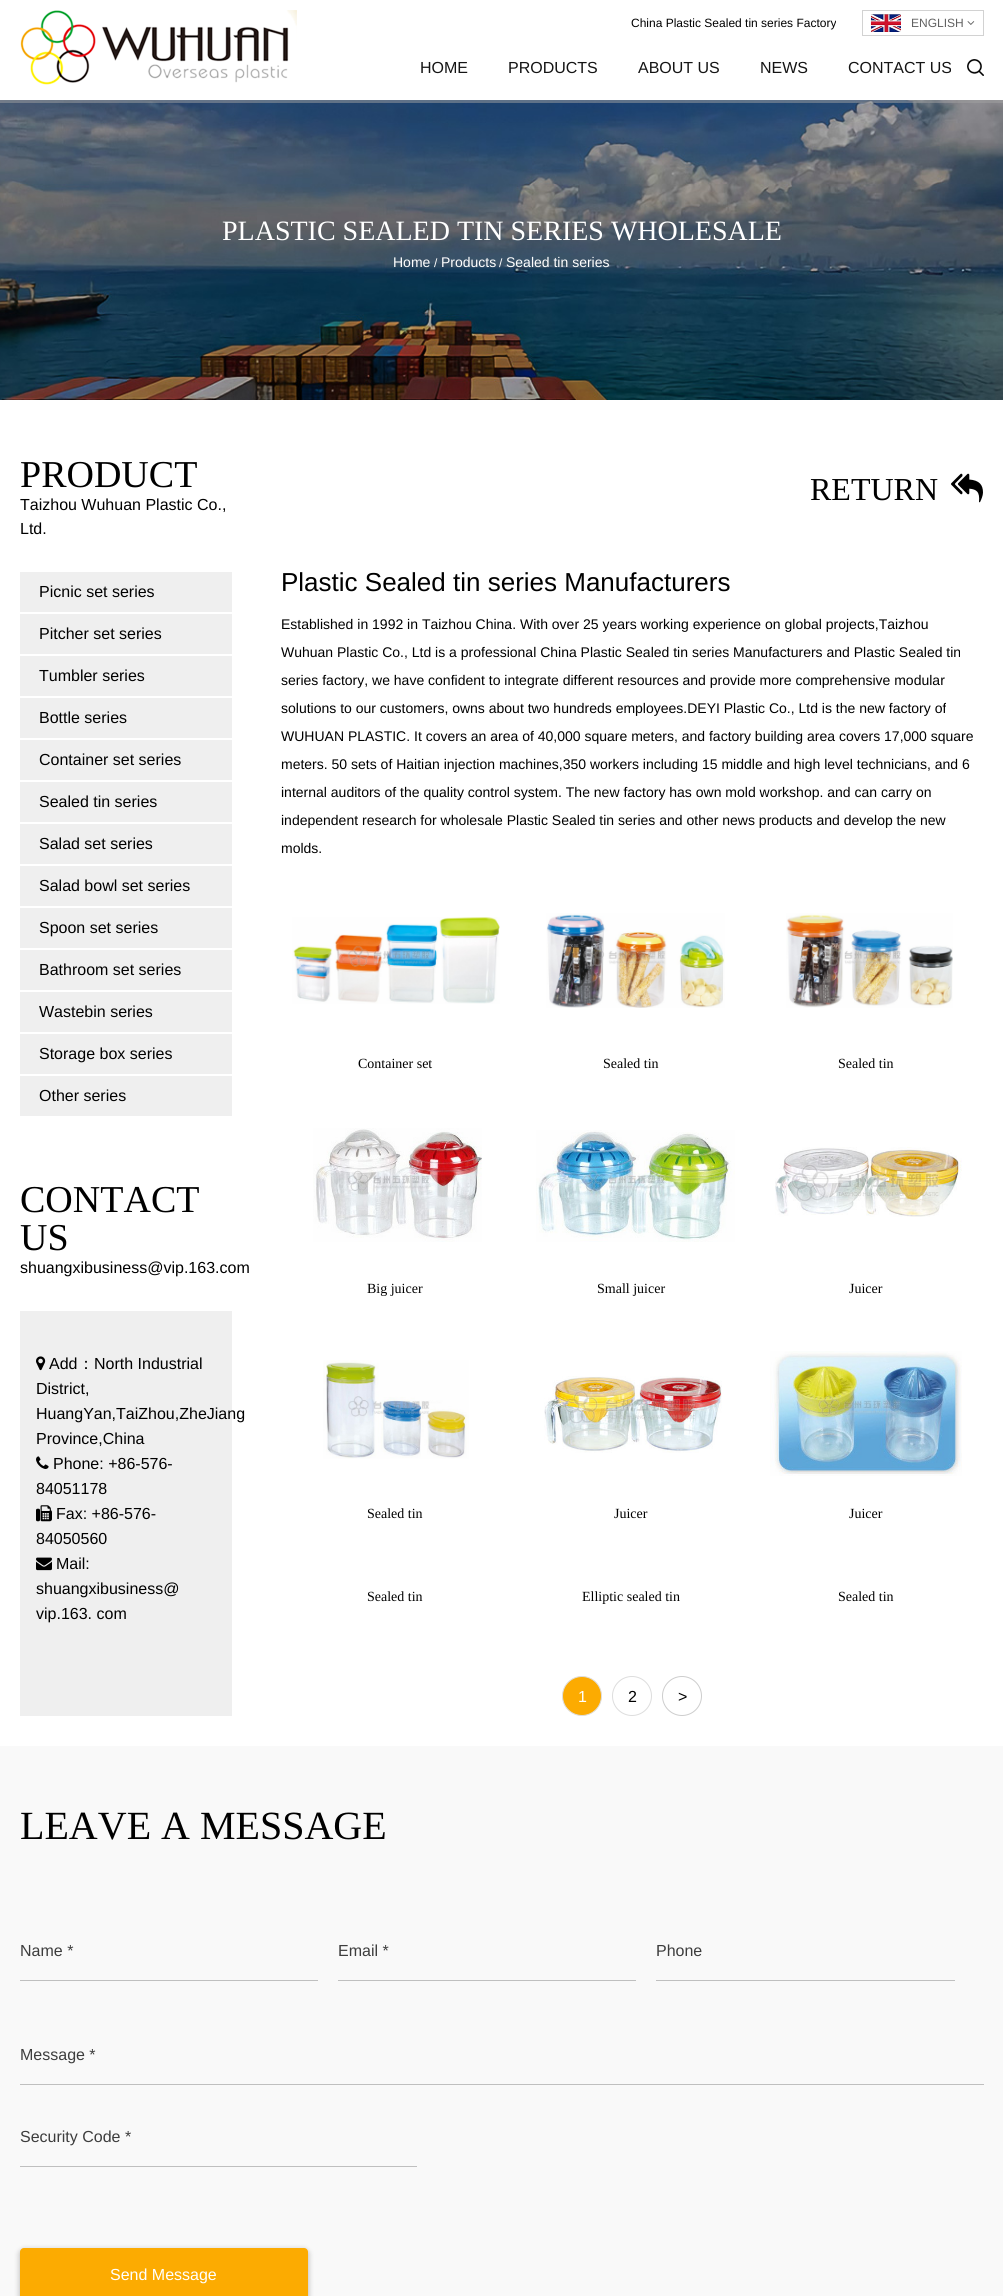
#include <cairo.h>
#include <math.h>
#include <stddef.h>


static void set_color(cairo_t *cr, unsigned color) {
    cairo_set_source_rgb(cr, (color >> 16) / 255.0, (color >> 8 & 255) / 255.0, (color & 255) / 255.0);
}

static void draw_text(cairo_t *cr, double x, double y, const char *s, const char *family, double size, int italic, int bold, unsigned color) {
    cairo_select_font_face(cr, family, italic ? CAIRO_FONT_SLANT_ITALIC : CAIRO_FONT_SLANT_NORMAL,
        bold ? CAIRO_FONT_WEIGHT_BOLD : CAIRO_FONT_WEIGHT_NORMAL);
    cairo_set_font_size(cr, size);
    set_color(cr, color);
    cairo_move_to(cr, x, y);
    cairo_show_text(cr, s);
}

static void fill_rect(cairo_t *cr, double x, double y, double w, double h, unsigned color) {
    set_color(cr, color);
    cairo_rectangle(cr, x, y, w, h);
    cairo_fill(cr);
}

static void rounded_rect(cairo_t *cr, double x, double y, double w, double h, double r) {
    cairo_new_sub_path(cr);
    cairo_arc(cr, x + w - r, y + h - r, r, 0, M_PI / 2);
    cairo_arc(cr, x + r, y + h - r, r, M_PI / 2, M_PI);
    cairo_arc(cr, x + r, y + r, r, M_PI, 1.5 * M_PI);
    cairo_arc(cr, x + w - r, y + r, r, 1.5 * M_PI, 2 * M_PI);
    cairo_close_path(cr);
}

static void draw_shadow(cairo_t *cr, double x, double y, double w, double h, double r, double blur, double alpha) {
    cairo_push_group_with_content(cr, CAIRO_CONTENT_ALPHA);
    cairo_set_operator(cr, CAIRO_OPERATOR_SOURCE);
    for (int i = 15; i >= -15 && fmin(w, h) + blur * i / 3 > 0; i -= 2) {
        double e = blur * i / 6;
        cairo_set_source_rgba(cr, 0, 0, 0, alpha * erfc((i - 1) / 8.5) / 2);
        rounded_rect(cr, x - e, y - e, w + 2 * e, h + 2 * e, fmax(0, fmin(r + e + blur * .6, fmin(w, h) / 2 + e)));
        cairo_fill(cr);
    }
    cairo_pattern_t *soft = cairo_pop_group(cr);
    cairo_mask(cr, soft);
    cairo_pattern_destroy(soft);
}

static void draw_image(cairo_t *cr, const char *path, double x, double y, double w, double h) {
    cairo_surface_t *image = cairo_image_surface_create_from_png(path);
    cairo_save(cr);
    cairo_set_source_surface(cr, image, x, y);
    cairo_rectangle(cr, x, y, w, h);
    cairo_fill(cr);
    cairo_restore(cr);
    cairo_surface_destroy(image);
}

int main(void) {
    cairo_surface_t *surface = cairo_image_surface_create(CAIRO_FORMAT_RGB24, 1003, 2296);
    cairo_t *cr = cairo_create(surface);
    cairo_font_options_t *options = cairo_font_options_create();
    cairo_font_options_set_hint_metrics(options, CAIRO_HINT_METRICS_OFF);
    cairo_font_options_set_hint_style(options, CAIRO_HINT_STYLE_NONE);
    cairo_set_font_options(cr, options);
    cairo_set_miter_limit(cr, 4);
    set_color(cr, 0xFFFFFF);
    cairo_paint(cr);
    draw_image(cr, "assets/img5.png", 0, 100, 1003, 300);
    cairo_rectangle(cr, -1.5, -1.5, 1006, 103);
    cairo_set_source_rgba(cr, 0.639, 0.635, 0.635, 0.5);
    cairo_set_line_width(cr, 3);
    cairo_stroke(cr);
    draw_image(cr, "assets/img1.png", 20, 10, 277, 75);
    draw_text(cr, 631, 27, "China Plastic Sealed tin series Factory", "Liberation Sans", 12, 0, 0, 0x000000);
    cairo_rectangle(cr, 862.5, 10.5, 121, 25);
    set_color(cr, 0xD2D2D2);
    cairo_set_line_width(cr, 1);
    cairo_stroke(cr);
    draw_image(cr, "assets/img2.png", 870, 14, 31, 18);
    draw_text(cr, 911, 27, "ENGLISH", "Liberation Sans", 12, 0, 0, 0x616161);
    draw_image(cr, "assets/img3.png", 967, 21, 8, 4);
    draw_text(cr, 420, 73, "HOME", "Liberation Sans", 16, 0, 0, 0x141414);
    draw_text(cr, 508, 73, "PRODUCTS", "Liberation Sans", 16, 0, 0, 0x141414);
    draw_text(cr, 638, 73, "ABOUT US", "Liberation Sans", 16, 0, 0, 0x141414);
    draw_text(cr, 760, 73, "NEWS", "Liberation Sans", 16, 0, 0, 0x141414);
    draw_text(cr, 848, 73, "CONTACT US", "Liberation Sans", 16, 0, 0, 0x141414);
    draw_image(cr, "assets/img4.png", 967, 59, 17, 17);
    draw_text(cr, 222, 240, "PLASTIC SEALED TIN SERIES WHOLESALE", "Liberation Serif", 28, 0, 0, 0xFFFFFF);
    draw_text(cr, 393, 267, "Home", "Liberation Sans", 14, 0, 0, 0xFFFFFF);
    draw_text(cr, 434, 267, "/", "Liberation Sans", 12, 0, 0, 0xFFFFFF);
    draw_text(cr, 441, 267, "Products", "Liberation Sans", 14, 0, 0, 0xFFFFFF);
    draw_text(cr, 499, 267, "/", "Liberation Sans", 12, 0, 0, 0xFFFFFF);
    draw_text(cr, 506, 267, "Sealed tin series", "Liberation Sans", 14, 0, 0, 0xFFFFFF);
    draw_text(cr, 20, 487, "PRODUCT", "Liberation Serif", 38, 0, 0, 0x000000);
    draw_text(cr, 20, 510, "Taizhou Wuhuan Plastic Co.,", "Liberation Sans", 16, 0, 0, 0x000000);
    draw_text(cr, 20, 534, "Ltd.", "Liberation Sans", 16, 0, 0, 0x000000);
    fill_rect(cr, 20, 572, 212, 40, 0xEFEFEF);
    draw_text(cr, 39, 597, "Picnic set series", "Liberation Sans", 16, 0, 0, 0x000000);
    fill_rect(cr, 20, 614, 212, 40, 0xEFEFEF);
    draw_text(cr, 39, 639, "Pitcher set series", "Liberation Sans", 16, 0, 0, 0x000000);
    fill_rect(cr, 20, 656, 212, 40, 0xEFEFEF);
    draw_text(cr, 39, 681, "Tumbler series", "Liberation Sans", 16, 0, 0, 0x000000);
    fill_rect(cr, 20, 698, 212, 40, 0xEFEFEF);
    draw_text(cr, 39, 723, "Bottle series", "Liberation Sans", 16, 0, 0, 0x000000);
    fill_rect(cr, 20, 740, 212, 40, 0xEFEFEF);
    draw_text(cr, 39, 765, "Container set series", "Liberation Sans", 16, 0, 0, 0x000000);
    fill_rect(cr, 20, 782, 212, 40, 0xEFEFEF);
    draw_text(cr, 39, 807, "Sealed tin series", "Liberation Sans", 16, 0, 0, 0x000000);
    fill_rect(cr, 20, 824, 212, 40, 0xEFEFEF);
    draw_text(cr, 39, 849, "Salad set series", "Liberation Sans", 16, 0, 0, 0x000000);
    fill_rect(cr, 20, 866, 212, 40, 0xEFEFEF);
    draw_text(cr, 39, 891, "Salad bowl set series", "Liberation Sans", 16, 0, 0, 0x000000);
    fill_rect(cr, 20, 908, 212, 40, 0xEFEFEF);
    draw_text(cr, 39, 933, "Spoon set series", "Liberation Sans", 16, 0, 0, 0x000000);
    fill_rect(cr, 20, 950, 212, 40, 0xEFEFEF);
    draw_text(cr, 39, 975, "Bathroom set series", "Liberation Sans", 16, 0, 0, 0x000000);
    fill_rect(cr, 20, 992, 212, 40, 0xEFEFEF);
    draw_text(cr, 39, 1017, "Wastebin series", "Liberation Sans", 16, 0, 0, 0x000000);
    fill_rect(cr, 20, 1034, 212, 40, 0xEFEFEF);
    draw_text(cr, 39, 1059, "Storage box series", "Liberation Sans", 16, 0, 0, 0x000000);
    fill_rect(cr, 20, 1076, 212, 40, 0xEFEFEF);
    draw_text(cr, 39, 1101, "Other series", "Liberation Sans", 16, 0, 0, 0x000000);
    draw_text(cr, 20, 1212, "CONTACT", "Liberation Serif", 38, 0, 0, 0x000000);
    draw_text(cr, 20, 1250, "US", "Liberation Serif", 38, 0, 0, 0x000000);
    draw_text(cr, 20, 1273, "shuangxibusiness@vip.163.com", "Liberation Sans", 16, 0, 0, 0x000000);
    fill_rect(cr, 20, 1311, 212, 405, 0xEFEFEF);
    draw_image(cr, "assets/img6.png", 36, 1356, 10, 15);
    draw_text(cr, 49, 1369, "Add", "Liberation Sans", 16, 0, 0, 0x000000);
    draw_text(cr, 78, 1369, "：", "WenQuanYi Zen Hei Medium", 16, 0, 0, 0x000000);
    draw_text(cr, 94, 1369, "North Industrial", "Liberation Sans", 16, 0, 0, 0x000000);
    draw_text(cr, 36, 1394, "District,", "Liberation Sans", 16, 0, 0, 0x000000);
    draw_text(cr, 36, 1419, "HuangYan,TaiZhou,ZheJiang", "Liberation Sans", 16, 0, 0, 0x000000);
    draw_text(cr, 36, 1444, "Province,China", "Liberation Sans", 16, 0, 0, 0x000000);
    draw_image(cr, "assets/img7.png", 36, 1456, 13, 13);
    draw_text(cr, 53, 1469, "Phone: +86-576-", "Liberation Sans", 16, 0, 0, 0x000000);
    draw_text(cr, 36, 1494, "84051178", "Liberation Sans", 16, 0, 0, 0x000000);
    draw_image(cr, "assets/img8.png", 36, 1505, 16, 17);
    draw_text(cr, 56, 1519, "Fax: +86-576-", "Liberation Sans", 16, 0, 0, 0x000000);
    draw_text(cr, 36, 1544, "84050560", "Liberation Sans", 16, 0, 0, 0x000000);
    draw_image(cr, "assets/img9.png", 36, 1557, 16, 14);
    draw_text(cr, 56, 1569, "Mail:", "Liberation Sans", 16, 0, 0, 0x000000);
    draw_text(cr, 36, 1594, "shuangxibusiness@", "Liberation Sans", 16, 0, 0, 0x000000);
    draw_text(cr, 36, 1619, "vip.163. com", "Liberation Sans", 16, 0, 0, 0x000000);
    draw_text(cr, 810, 500, "RETURN", "Liberation Serif", 32, 0, 0, 0x000000);
    draw_image(cr, "assets/img10.png", 951, 473, 32, 30);
    draw_text(cr, 281, 591, "Plastic Sealed tin series Manufacturers", "Liberation Sans", 26, 0, 0, 0x000000);
    draw_text(cr, 281, 629, "Established in 1992 in Taizhou China. With over 25 years working experience on global projects,Taizhou", "Liberation Sans", 14, 0, 0, 0x000000);
    draw_text(cr, 281, 657, "Wuhuan Plastic Co., Ltd is a professional China Plastic Sealed tin series Manufacturers and Plastic Sealed tin", "Liberation Sans", 14, 0, 0, 0x000000);
    draw_text(cr, 281, 685, "series factory, we have confident to integrate different resources and provide more comprehensive modular", "Liberation Sans", 14, 0, 0, 0x000000);
    draw_text(cr, 281, 713, "solutions to our customers, owns about two hundreds employees.DEYI Plastic Co., Ltd is the new factory of", "Liberation Sans", 14, 0, 0, 0x000000);
    draw_text(cr, 281, 741, "WUHUAN PLASTIC. It covers an area of 40,000 square meters, and factory building area covers 17,000 square", "Liberation Sans", 14, 0, 0, 0x000000);
    draw_text(cr, 281, 769, "meters. 50 sets of Haitian injection machines,350 workers including 15 middle and high level technicians, and 6", "Liberation Sans", 14, 0, 0, 0x000000);
    draw_text(cr, 281, 797, "internal auditors of the quality control system. The new factory has own mold workshop. and can carry on", "Liberation Sans", 14, 0, 0, 0x000000);
    draw_text(cr, 281, 825, "independent research for wholesale Plastic Sealed tin series and other news products and develop the new", "Liberation Sans", 14, 0, 0, 0x000000);
    draw_text(cr, 281, 853, "molds.", "Liberation Sans", 14, 0, 0, 0x000000);
    draw_image(cr, "assets/img11.png", 292, 917, 208, 87);
    draw_text(cr, 358, 1068, "Container set", "Liberation Serif", 14, 0, 0, 0x000000);
    draw_image(cr, "assets/img12.png", 546, 913, 179, 95);
    draw_text(cr, 603, 1068, "Sealed tin", "Liberation Serif", 14, 0, 0, 0x000000);
    draw_image(cr, "assets/img13.png", 786, 913, 167, 95);
    draw_text(cr, 838, 1068, "Sealed tin", "Liberation Serif", 14, 0, 0, 0x000000);
    draw_image(cr, "assets/img14.png", 313, 1128, 169, 114);
    draw_text(cr, 367, 1293, "Big juicer", "Liberation Serif", 14, 0, 0, 0x000000);
    draw_image(cr, "assets/img15.png", 536, 1130, 199, 112);
    draw_text(cr, 597, 1293, "Small juicer", "Liberation Serif", 14, 0, 0, 0x000000);
    draw_image(cr, "assets/img16.png", 775, 1147, 187, 70);
    draw_text(cr, 849, 1293, "Juicer", "Liberation Serif", 14, 0, 0, 0x000000);
    draw_image(cr, "assets/img17.png", 323, 1360, 146, 99);
    draw_text(cr, 367, 1518, "Sealed tin", "Liberation Serif", 14, 0, 0, 0x000000);
    draw_image(cr, "assets/img18.png", 544, 1376, 178, 77);
    draw_text(cr, 614, 1518, "Juicer", "Liberation Serif", 14, 0, 0, 0x000000);
    draw_image(cr, "assets/img19.png", 770, 1351, 192, 125);
    draw_text(cr, 849, 1518, "Juicer", "Liberation Serif", 14, 0, 0, 0x000000);
    draw_text(cr, 367, 1601, "Sealed tin", "Liberation Serif", 14, 0, 0, 0x000000);
    draw_text(cr, 582, 1601, "Elliptic sealed tin", "Liberation Serif", 14, 0, 0, 0x000000);
    draw_text(cr, 838, 1601, "Sealed tin", "Liberation Serif", 14, 0, 0, 0x000000);
    set_color(cr, 0xFCAB01);
    cairo_new_path(cr);
    cairo_arc(cr, 582, 1696, 19.5, 0, 2 * M_PI);
    cairo_fill_preserve(cr);
    set_color(cr, 0xDDDDDD);
    cairo_stroke(cr);
    draw_text(cr, 578, 1702, "1", "Liberation Sans", 16, 0, 0, 0xFFFFFF);
    cairo_new_path(cr);
    cairo_arc(cr, 632, 1696, 19.5, 0, 2 * M_PI);
    set_color(cr, 0xDDDDDD);
    cairo_stroke(cr);
    draw_text(cr, 628, 1702, "2", "Liberation Sans", 16, 0, 0, 0x000000);
    cairo_new_path(cr);
    cairo_arc(cr, 682, 1696, 19.5, 0, 2 * M_PI);
    set_color(cr, 0xCDCDCD);
    cairo_stroke(cr);
    draw_text(cr, 678, 1702, ">", "Liberation Sans", 16, 0, 0, 0x000000);
    fill_rect(cr, 0, 1746, 1003, 550, 0xF9F9F9);
    draw_text(cr, 20, 1839, "LEAVE A MESSAGE", "Liberation Serif", 40, 0, 0, 0x000000);
    draw_text(cr, 20, 1956, "Name *", "Liberation Sans", 16, 0, 0, 0x3D3D3D);
    fill_rect(cr, 20, 1980, 298, 1, 0xBFBFBF);
    draw_text(cr, 338, 1956, "Email *", "Liberation Sans", 16, 0, 0, 0x3D3D3D);
    fill_rect(cr, 338, 1980, 298, 1, 0xBFBFBF);
    draw_text(cr, 656, 1956, "Phone", "Liberation Sans", 16, 0, 0, 0x3D3D3D);
    fill_rect(cr, 656, 1980, 299, 1, 0xBFBFBF);
    draw_text(cr, 20, 2060, "Message *", "Liberation Sans", 16, 0, 0, 0x3D3D3D);
    fill_rect(cr, 20, 2084, 964, 1, 0xBFBFBF);
    draw_text(cr, 20, 2142, "Security Code *", "Liberation Sans", 16, 0, 0, 0x3D3D3D);
    fill_rect(cr, 20, 2166, 397, 1, 0xBFBFBF);
    set_color(cr, 0x000000);
    draw_shadow(cr, 20, 2250, 288, 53, 4, 3, 0.3);
    set_color(cr, 0xFCAB01);
    rounded_rect(cr, 20, 2248, 288, 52, 4);
    cairo_fill(cr);
    draw_text(cr, 110, 2280, "Send Message", "Liberation Sans", 16, 0, 0, 0xFFFFFF);
    cairo_surface_write_to_png(surface, "output.png");
    cairo_font_options_destroy(options);
    cairo_destroy(cr);
    cairo_surface_destroy(surface);
    return 0;
}
